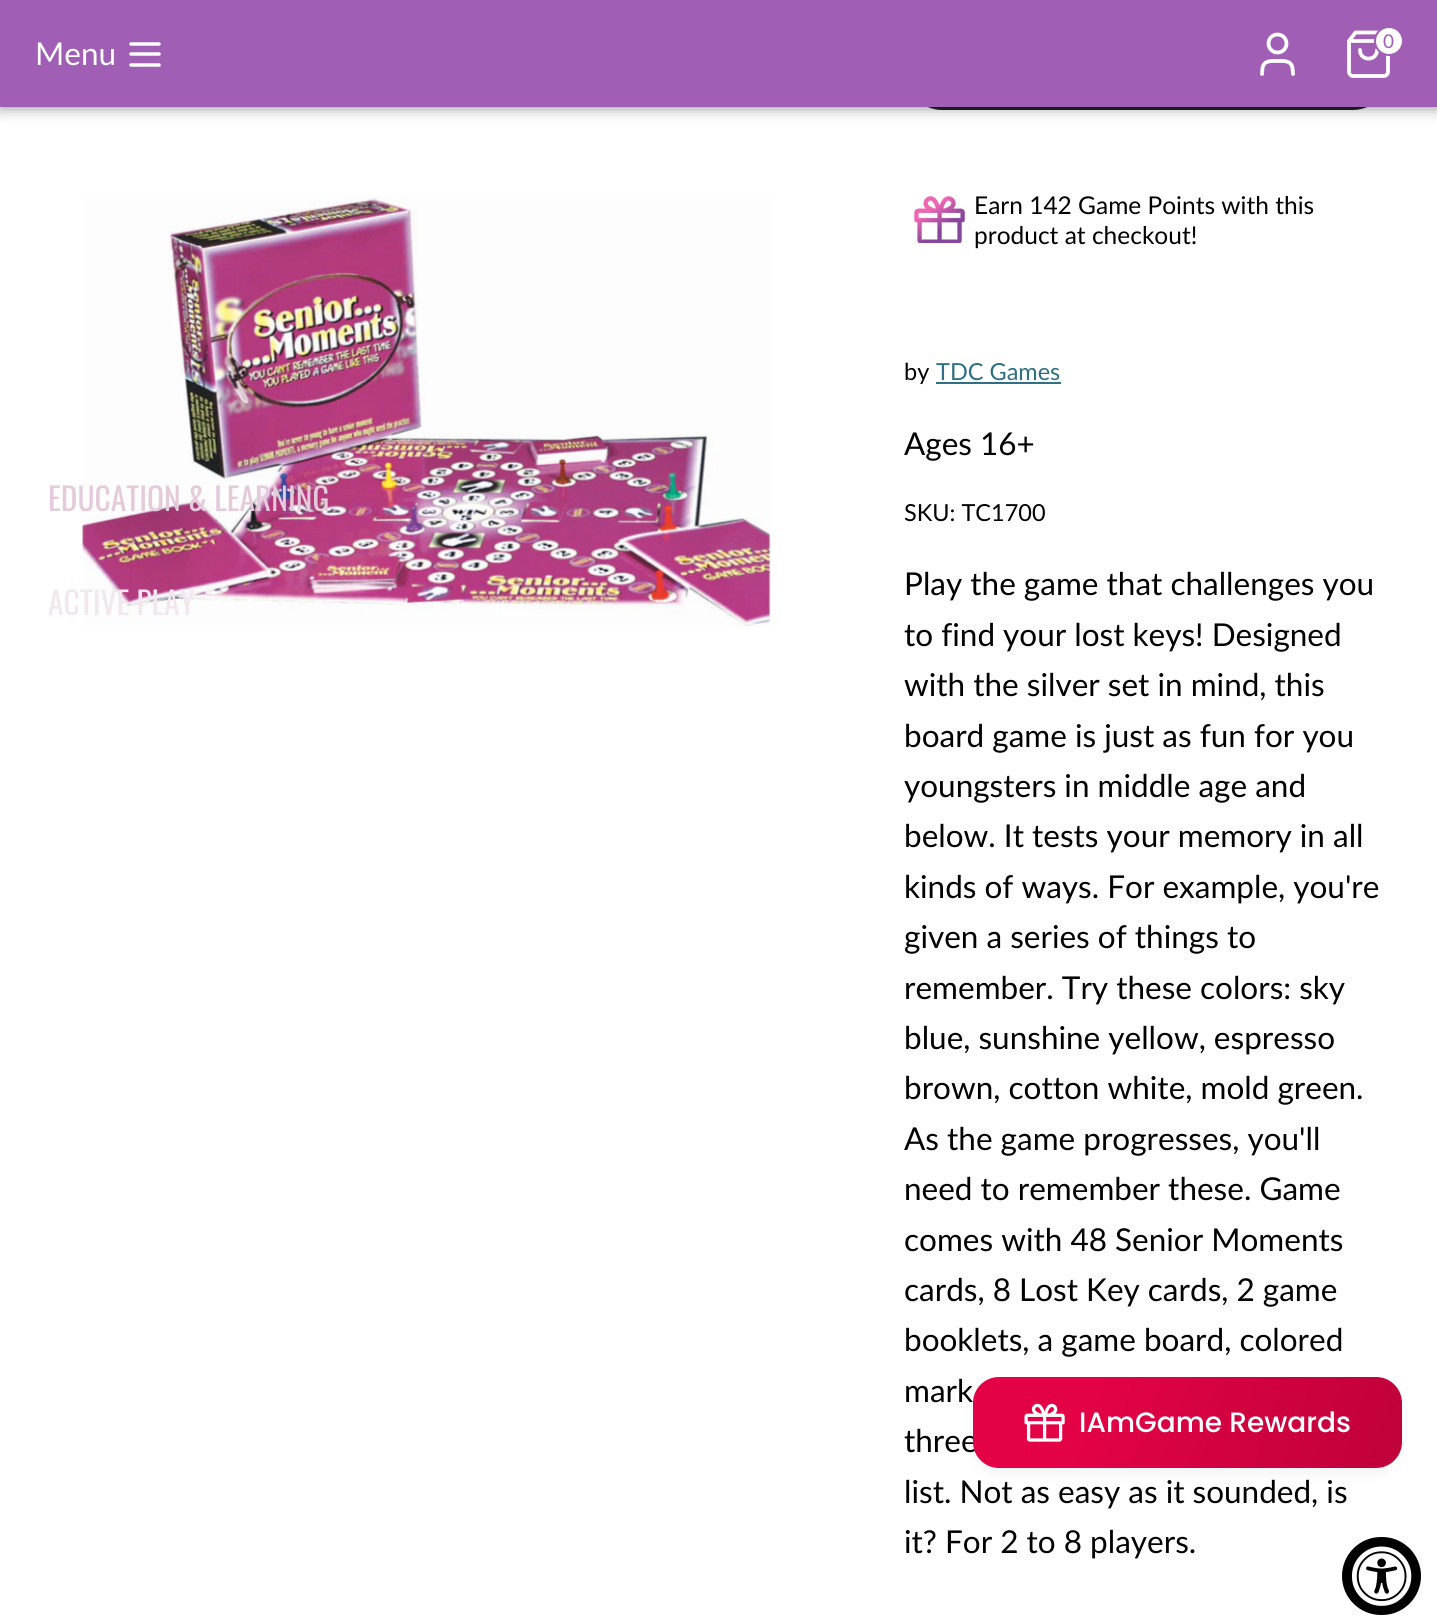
#include <cairo.h>
#include <math.h>
#include <stddef.h>


static void set_color(cairo_t *cr, unsigned color) {
    cairo_set_source_rgb(cr, (color >> 16) / 255.0, (color >> 8 & 255) / 255.0, (color & 255) / 255.0);
}

static void draw_text(cairo_t *cr, double x, double y, const char *s, const char *family, double size, int italic, int bold, unsigned color) {
    cairo_select_font_face(cr, family, italic ? CAIRO_FONT_SLANT_ITALIC : CAIRO_FONT_SLANT_NORMAL,
        bold ? CAIRO_FONT_WEIGHT_BOLD : CAIRO_FONT_WEIGHT_NORMAL);
    cairo_set_font_size(cr, size);
    set_color(cr, color);
    cairo_move_to(cr, x, y);
    cairo_show_text(cr, s);
}

static void fill_rect(cairo_t *cr, double x, double y, double w, double h, unsigned color) {
    set_color(cr, color);
    cairo_rectangle(cr, x, y, w, h);
    cairo_fill(cr);
}

static void rounded_rect(cairo_t *cr, double x, double y, double w, double h, double r) {
    cairo_new_sub_path(cr);
    cairo_arc(cr, x + w - r, y + h - r, r, 0, M_PI / 2);
    cairo_arc(cr, x + r, y + h - r, r, M_PI / 2, M_PI);
    cairo_arc(cr, x + r, y + r, r, M_PI, 1.5 * M_PI);
    cairo_arc(cr, x + w - r, y + r, r, 1.5 * M_PI, 2 * M_PI);
    cairo_close_path(cr);
}

static void draw_shadow(cairo_t *cr, double x, double y, double w, double h, double r, double blur, double alpha) {
    cairo_push_group_with_content(cr, CAIRO_CONTENT_ALPHA);
    cairo_set_operator(cr, CAIRO_OPERATOR_SOURCE);
    for (int i = 15; i >= -15 && fmin(w, h) + blur * i / 3 > 0; i -= 2) {
        double e = blur * i / 6;
        cairo_set_source_rgba(cr, 0, 0, 0, alpha * erfc((i - 1) / 8.5) / 2);
        rounded_rect(cr, x - e, y - e, w + 2 * e, h + 2 * e, fmax(0, fmin(r + e + blur * .6, fmin(w, h) / 2 + e)));
        cairo_fill(cr);
    }
    cairo_pattern_t *soft = cairo_pop_group(cr);
    cairo_mask(cr, soft);
    cairo_pattern_destroy(soft);
}

static void draw_image(cairo_t *cr, const char *path, double x, double y, double w, double h) {
    cairo_surface_t *image = cairo_image_surface_create_from_png(path);
    cairo_save(cr);
    cairo_set_source_surface(cr, image, x, y);
    cairo_rectangle(cr, x, y, w, h);
    cairo_fill(cr);
    cairo_restore(cr);
    cairo_surface_destroy(image);
}

int main(void) {
    cairo_surface_t *surface = cairo_image_surface_create(CAIRO_FORMAT_RGB24, 1437, 1617);
    cairo_t *cr = cairo_create(surface);
    cairo_font_options_t *options = cairo_font_options_create();
    cairo_font_options_set_hint_metrics(options, CAIRO_HINT_METRICS_OFF);
    cairo_font_options_set_hint_style(options, CAIRO_HINT_STYLE_NONE);
    cairo_set_font_options(cr, options);
    cairo_set_miter_limit(cr, 4);
    cairo_pattern_t *gradient;
    set_color(cr, 0xFFFFFF);
    cairo_paint(cr);
    set_color(cr, 0x202223);
    rounded_rect(cr, 907, 14, 481, 96, 35);
    cairo_fill(cr);
    set_color(cr, 0x000000);
    draw_shadow(cr, 0, -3, 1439, 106, 0, 9, 0.75);
    fill_rect(cr, 0, 0, 1437, 107, 0xA05EB5);
    draw_text(cr, 35, 65, "Menu", "Lato", 31.5, 0, 0, 0xFFFFFF);
    cairo_new_path(cr);
    cairo_move_to(cr, 131, 54);
    cairo_line_to(cr, 159, 54);
    cairo_move_to(cr, 131, 44);
    cairo_line_to(cr, 159, 44);
    cairo_move_to(cr, 131, 65);
    cairo_line_to(cr, 159, 65);
    cairo_set_line_width(cr, 3.5);
    cairo_set_line_cap(cr, CAIRO_LINE_CAP_ROUND);
    cairo_set_line_join(cr, CAIRO_LINE_JOIN_ROUND);
    cairo_stroke(cr);
    cairo_new_path(cr);
    cairo_move_to(cr, 1293, 74);
    cairo_line_to(cr, 1292.5, 68);
    cairo_curve_to(cr, 1291, 60, 1283.5, 61, 1277.5, 61);
    cairo_curve_to(cr, 1271.5, 61, 1264, 60, 1262.5, 68);
    cairo_line_to(cr, 1262, 74);
    cairo_set_line_width(cr, 3.8);
    cairo_stroke(cr);
    cairo_arc(cr, 1277.5, 43.5, 9, 0, 2 * M_PI);
    cairo_set_line_cap(cr, CAIRO_LINE_CAP_BUTT);
    cairo_set_line_join(cr, CAIRO_LINE_JOIN_MITER);
    cairo_stroke(cr);
    cairo_new_path(cr);
    cairo_move_to(cr, 1355.5, 32.5);
    cairo_line_to(cr, 1349, 41);
    cairo_line_to(cr, 1349, 72);
    cairo_curve_to(cr, 1349, 74, 1351, 76, 1353, 76);
    cairo_line_to(cr, 1384, 76);
    cairo_curve_to(cr, 1386, 76, 1388, 74, 1388, 72);
    cairo_line_to(cr, 1388, 41);
    cairo_line_to(cr, 1381.5, 32.5);
    cairo_close_path(cr);
    cairo_move_to(cr, 1349, 41);
    cairo_line_to(cr, 1388, 41);
    cairo_move_to(cr, 1377, 50);
    cairo_curve_to(cr, 1377, 61.5, 1360, 61.5, 1360, 50);
    cairo_set_line_cap(cr, CAIRO_LINE_CAP_ROUND);
    cairo_set_line_join(cr, CAIRO_LINE_JOIN_ROUND);
    cairo_stroke(cr);
    cairo_arc(cr, 1389, 41, 14, 0, 2 * M_PI);
    cairo_fill_preserve(cr);
    set_color(cr, 0xA05EB5);
    cairo_set_line_width(cr, 2);
    cairo_set_line_cap(cr, CAIRO_LINE_CAP_BUTT);
    cairo_set_line_join(cr, CAIRO_LINE_JOIN_MITER);
    cairo_stroke(cr);
    draw_text(cr, 1383, 48, "0", "Lato", 19, 0, 0, 0xA05EB5);
    draw_image(cr, "assets/img1.png", 81, 195, 693, 432);
    draw_text(cr, 48, 511, "EDUCATION & LEARNING", "Oswald", 31.5, 0, 0, 0xE4CADB);
    draw_text(cr, 48, 615, "ACTIVE PLAY", "Oswald", 31.5, 0, 0, 0xF3E7EF);
    draw_image(cr, "assets/img2.png", 914, 196, 51, 47);
    draw_text(cr, 974, 214, "Earn 142 Game Points with this", "Lato", 24.5, 0, 0, 0x000000);
    draw_text(cr, 974, 244, "product at checkout!", "Lato", 24.5, 0, 0, 0x000000);
    draw_text(cr, 904, 380, "by", "Lato", 23.5, 0, 0, 0x000000);
    draw_text(cr, 936, 380, "TDC Games", "Lato", 23.5, 0, 0, 0x2E6F84);
    fill_rect(cr, 936, 382, 125, 2, 0x2E6F84);
    draw_text(cr, 904, 455, "Ages 16+", "Lato", 31.5, 0, 0, 0x000000);
    draw_text(cr, 904, 521, "SKU: TC1700", "Lato", 23.5, 0, 0, 0x000000);
    draw_text(cr, 904, 595, "Play the game that challenges you", "Lato", 31.5, 0, 0, 0x000000);
    draw_text(cr, 904, 646, "to find your lost keys! Designed", "Lato", 31.5, 0, 0, 0x000000);
    draw_text(cr, 904, 696, "with the silver set in mind, this", "Lato", 31.5, 0, 0, 0x000000);
    draw_text(cr, 904, 747, "board game is just as fun for you", "Lato", 31.5, 0, 0, 0x000000);
    draw_text(cr, 904, 797, "youngsters in middle age and", "Lato", 31.5, 0, 0, 0x000000);
    draw_text(cr, 904, 847, "below. It tests your memory in all", "Lato", 31.5, 0, 0, 0x000000);
    draw_text(cr, 904, 898, "kinds of ways. For example, you're", "Lato", 31.5, 0, 0, 0x000000);
    draw_text(cr, 904, 948, "given a series of things to", "Lato", 31.5, 0, 0, 0x000000);
    draw_text(cr, 904, 999, "remember. Try these colors: sky", "Lato", 31.5, 0, 0, 0x000000);
    draw_text(cr, 904, 1049, "blue, sunshine yellow, espresso", "Lato", 31.5, 0, 0, 0x000000);
    draw_text(cr, 904, 1099, "brown, cotton white, mold green.", "Lato", 31.5, 0, 0, 0x000000);
    draw_text(cr, 904, 1150, "As the game progresses, you'll", "Lato", 31.5, 0, 0, 0x000000);
    draw_text(cr, 904, 1200, "need to remember these. Game", "Lato", 31.5, 0, 0, 0x000000);
    draw_text(cr, 904, 1251, "comes with 48 Senior Moments", "Lato", 31.5, 0, 0, 0x000000);
    draw_text(cr, 904, 1301, "cards, 8 Lost Key cards, 2 game", "Lato", 31.5, 0, 0, 0x000000);
    draw_text(cr, 904, 1351, "booklets, a game board, colored", "Lato", 31.5, 0, 0, 0x000000);
    draw_text(cr, 904, 1402, "mark", "Lato", 31.5, 0, 0, 0x000000);
    draw_text(cr, 904, 1452, "three", "Lato", 31.5, 0, 0, 0x000000);
    draw_text(cr, 904, 1503, "list. Not as easy as it sounded, is", "Lato", 31.5, 0, 0, 0x000000);
    draw_text(cr, 904, 1553, "it? For 2 to 8 players.", "Lato", 31.5, 0, 0, 0x000000);
    set_color(cr, 0x444444);
    draw_shadow(cr, 977, 1388, 421, 84, 23, 7, 0.08);
    gradient = cairo_pattern_create_linear(983, 1350, 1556, 1554);
    cairo_pattern_add_color_stop_rgba(gradient, 0.17, 0.894, 0.008, 0.275, 1);
    cairo_pattern_add_color_stop_rgba(gradient, 1, 0.671, 0, 0.2, 1);
    cairo_set_source(cr, gradient);
    cairo_pattern_destroy(gradient);
    rounded_rect(cr, 973, 1377, 429, 91, 26);
    cairo_fill(cr);
    draw_image(cr, "assets/img3.png", 1024, 1403, 41, 39);
    draw_text(cr, 1079, 1432, "IAmGame Rewards", "Poppins Medium", 28, 0, 0, 0xFFFFFF);
    set_color(cr, 0x000000);
    rounded_rect(cr, 1342, 1537, 79, 78, 39);
    cairo_fill(cr);
    draw_image(cr, "assets/img4.png", 1351, 1546, 61, 60);
    cairo_surface_write_to_png(surface, "output.png");
    cairo_font_options_destroy(options);
    cairo_destroy(cr);
    cairo_surface_destroy(surface);
    return 0;
}
